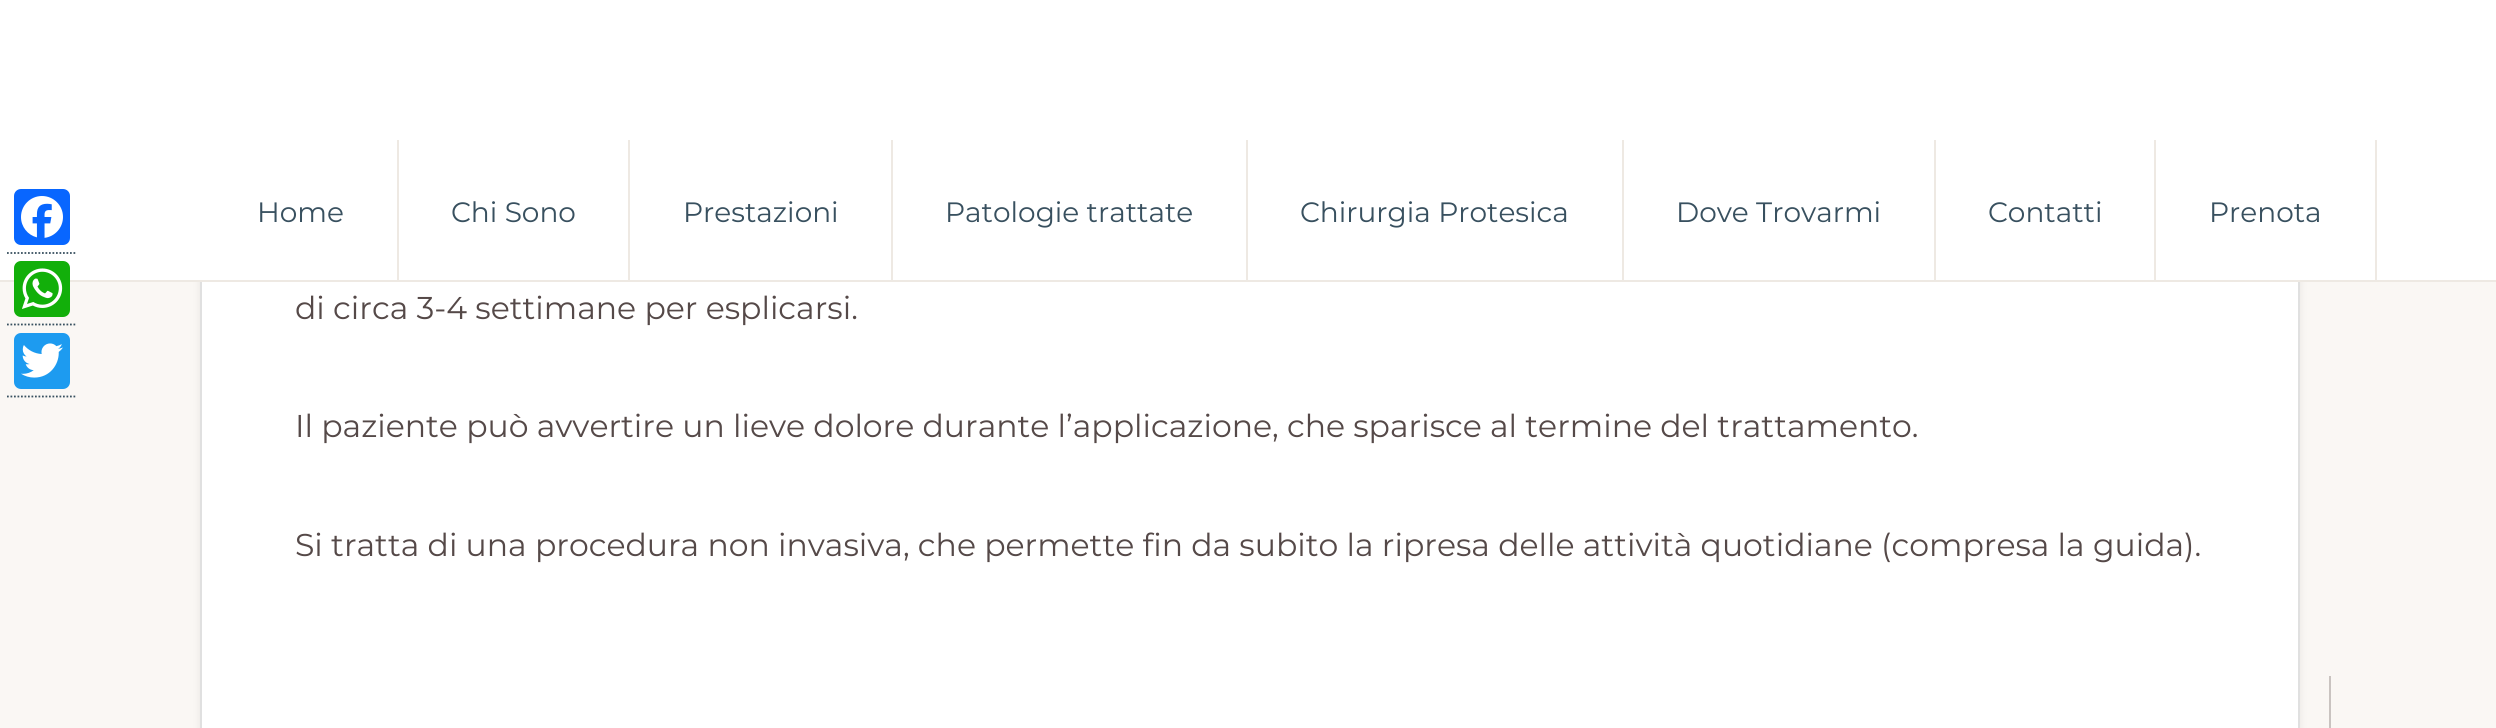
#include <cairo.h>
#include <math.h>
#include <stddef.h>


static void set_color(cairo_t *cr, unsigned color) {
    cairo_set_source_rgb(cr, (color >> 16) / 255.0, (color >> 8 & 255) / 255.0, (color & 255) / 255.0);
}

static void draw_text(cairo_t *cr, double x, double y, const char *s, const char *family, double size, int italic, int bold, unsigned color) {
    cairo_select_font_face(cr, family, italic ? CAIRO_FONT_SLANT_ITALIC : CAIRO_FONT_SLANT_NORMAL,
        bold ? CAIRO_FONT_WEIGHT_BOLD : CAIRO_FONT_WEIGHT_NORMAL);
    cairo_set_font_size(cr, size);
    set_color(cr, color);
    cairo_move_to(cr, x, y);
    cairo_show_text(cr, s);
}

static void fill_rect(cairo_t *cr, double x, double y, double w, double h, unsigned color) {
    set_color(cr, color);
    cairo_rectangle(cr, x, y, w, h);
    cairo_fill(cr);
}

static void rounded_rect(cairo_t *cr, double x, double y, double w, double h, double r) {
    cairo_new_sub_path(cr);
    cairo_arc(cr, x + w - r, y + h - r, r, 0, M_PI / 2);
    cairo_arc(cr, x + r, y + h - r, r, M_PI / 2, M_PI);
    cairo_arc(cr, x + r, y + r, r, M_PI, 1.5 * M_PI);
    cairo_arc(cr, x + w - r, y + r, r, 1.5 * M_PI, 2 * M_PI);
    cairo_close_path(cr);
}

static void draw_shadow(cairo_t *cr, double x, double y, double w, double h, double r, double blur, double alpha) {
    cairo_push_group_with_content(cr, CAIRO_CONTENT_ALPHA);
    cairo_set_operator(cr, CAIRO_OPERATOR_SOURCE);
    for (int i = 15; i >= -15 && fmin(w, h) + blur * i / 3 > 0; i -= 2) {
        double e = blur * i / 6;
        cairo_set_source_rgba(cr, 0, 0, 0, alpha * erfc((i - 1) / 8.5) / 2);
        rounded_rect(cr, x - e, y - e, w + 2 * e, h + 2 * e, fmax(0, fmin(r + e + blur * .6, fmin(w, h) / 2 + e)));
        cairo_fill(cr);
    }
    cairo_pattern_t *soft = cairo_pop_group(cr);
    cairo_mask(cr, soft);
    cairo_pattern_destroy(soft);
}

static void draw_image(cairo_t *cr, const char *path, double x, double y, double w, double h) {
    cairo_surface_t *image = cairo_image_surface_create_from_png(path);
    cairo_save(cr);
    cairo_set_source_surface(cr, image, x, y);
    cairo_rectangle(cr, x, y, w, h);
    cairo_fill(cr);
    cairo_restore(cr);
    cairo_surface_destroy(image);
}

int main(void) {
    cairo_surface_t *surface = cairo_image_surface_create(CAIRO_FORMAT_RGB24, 2496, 728);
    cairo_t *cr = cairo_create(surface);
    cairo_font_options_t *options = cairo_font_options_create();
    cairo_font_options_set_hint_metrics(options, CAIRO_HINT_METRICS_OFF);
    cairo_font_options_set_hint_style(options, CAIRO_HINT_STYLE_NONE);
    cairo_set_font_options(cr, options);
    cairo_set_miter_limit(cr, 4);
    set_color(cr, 0xFAF7F4);
    cairo_paint(cr);
    set_color(cr, 0x000000);
    draw_shadow(cr, 200, -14, 2100, 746, 0, 4.5, 0.07);
    fill_rect(cr, 202, 282, 2096, 446, 0xFFFFFF);
    cairo_rectangle(cr, 201, -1, 2098, 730);
    set_color(cr, 0xE0E0E0);
    cairo_stroke(cr);
    fill_rect(cr, 0, 0, 2496, 280, 0xFFFFFF);
    cairo_new_path(cr);
    cairo_move_to(cr, 7, 253);
    cairo_line_to(cr, 77, 253);
    set_color(cr, 0x38505F);
    cairo_set_line_width(cr, 1.8);
    cairo_set_dash(cr, (double[]){1.75, 1.75}, 2, 0);
    cairo_stroke(cr);
    set_color(cr, 0x0866FF);
    rounded_rect(cr, 14, 189, 56, 56, 7);
    cairo_fill(cr);
    draw_image(cr, "assets/img1.png", 21, 196, 42, 42);
    cairo_new_path(cr);
    cairo_move_to(cr, 7, 324.5);
    cairo_line_to(cr, 77, 324.5);
    set_color(cr, 0x38505F);
    cairo_stroke(cr);
    fill_rect(cr, 0, 280, 2496, 2, 0xEEE9E3);
    set_color(cr, 0x12AF0A);
    rounded_rect(cr, 14, 261, 56, 56, 7);
    cairo_fill(cr);
    draw_image(cr, "assets/img2.png", 22, 268, 41, 41);
    cairo_new_path(cr);
    cairo_move_to(cr, 7, 396.5);
    cairo_line_to(cr, 77, 396.5);
    set_color(cr, 0x38505F);
    cairo_stroke(cr);
    set_color(cr, 0x1D9BF0);
    rounded_rect(cr, 14, 333, 56, 56, 7);
    cairo_fill(cr);
    draw_image(cr, "assets/img3.png", 21, 343, 42, 35);
    fill_rect(cr, 397, 140, 2, 140, 0xEEE9E3);
    draw_text(cr, 257, 222, "Home", "Montserrat", 28, 0, 0, 0x38505F);
    fill_rect(cr, 628, 140, 2, 140, 0xEEE9E3);
    draw_text(cr, 451, 222, "Chi Sono", "Montserrat", 28, 0, 0, 0x38505F);
    fill_rect(cr, 891, 140, 2, 140, 0xEEE9E3);
    draw_text(cr, 683, 222, "Prestazioni", "Montserrat", 28, 0, 0, 0x38505F);
    fill_rect(cr, 1246, 140, 2, 140, 0xEEE9E3);
    draw_text(cr, 945, 222, "Patologie trattate", "Montserrat", 28, 0, 0, 0x38505F);
    fill_rect(cr, 1622, 140, 2, 140, 0xEEE9E3);
    draw_text(cr, 1300, 222, "Chirurgia Protesica", "Montserrat", 28, 0, 0, 0x38505F);
    fill_rect(cr, 1934, 140, 2, 140, 0xEEE9E3);
    draw_text(cr, 1676, 222, "Dove Trovarmi", "Montserrat", 28, 0, 0, 0x38505F);
    fill_rect(cr, 2154, 140, 2, 140, 0xEEE9E3);
    draw_text(cr, 1988, 222, "Contatti", "Montserrat", 28, 0, 0, 0x38505F);
    fill_rect(cr, 2375, 140, 2, 140, 0xEEE9E3);
    draw_text(cr, 2209, 222, "Prenota", "Montserrat", 28, 0, 0, 0x38505F);
    draw_text(cr, 295, 319, "di circa 3-4 settimane per esplicarsi.", "Montserrat", 31.5, 0, 0, 0x554948);
    draw_text(cr, 295, 437, "Il paziente può avvertire un lieve dolore durante l’applicazione, che sparisce al termine del trattamento.", "Montserrat", 31.5, 0, 0, 0x554948);
    draw_text(cr, 295, 556, "Si tratta di una procedura non invasiva, che permette fin da subito la ripresa delle attività quotidiane (compresa la guida).", "Montserrat", 31.5, 0, 0, 0x554948);
    fill_rect(cr, 2329, 676, 2, 52, 0xC9C3C0);
    cairo_surface_write_to_png(surface, "output.png");
    cairo_font_options_destroy(options);
    cairo_destroy(cr);
    cairo_surface_destroy(surface);
    return 0;
}
